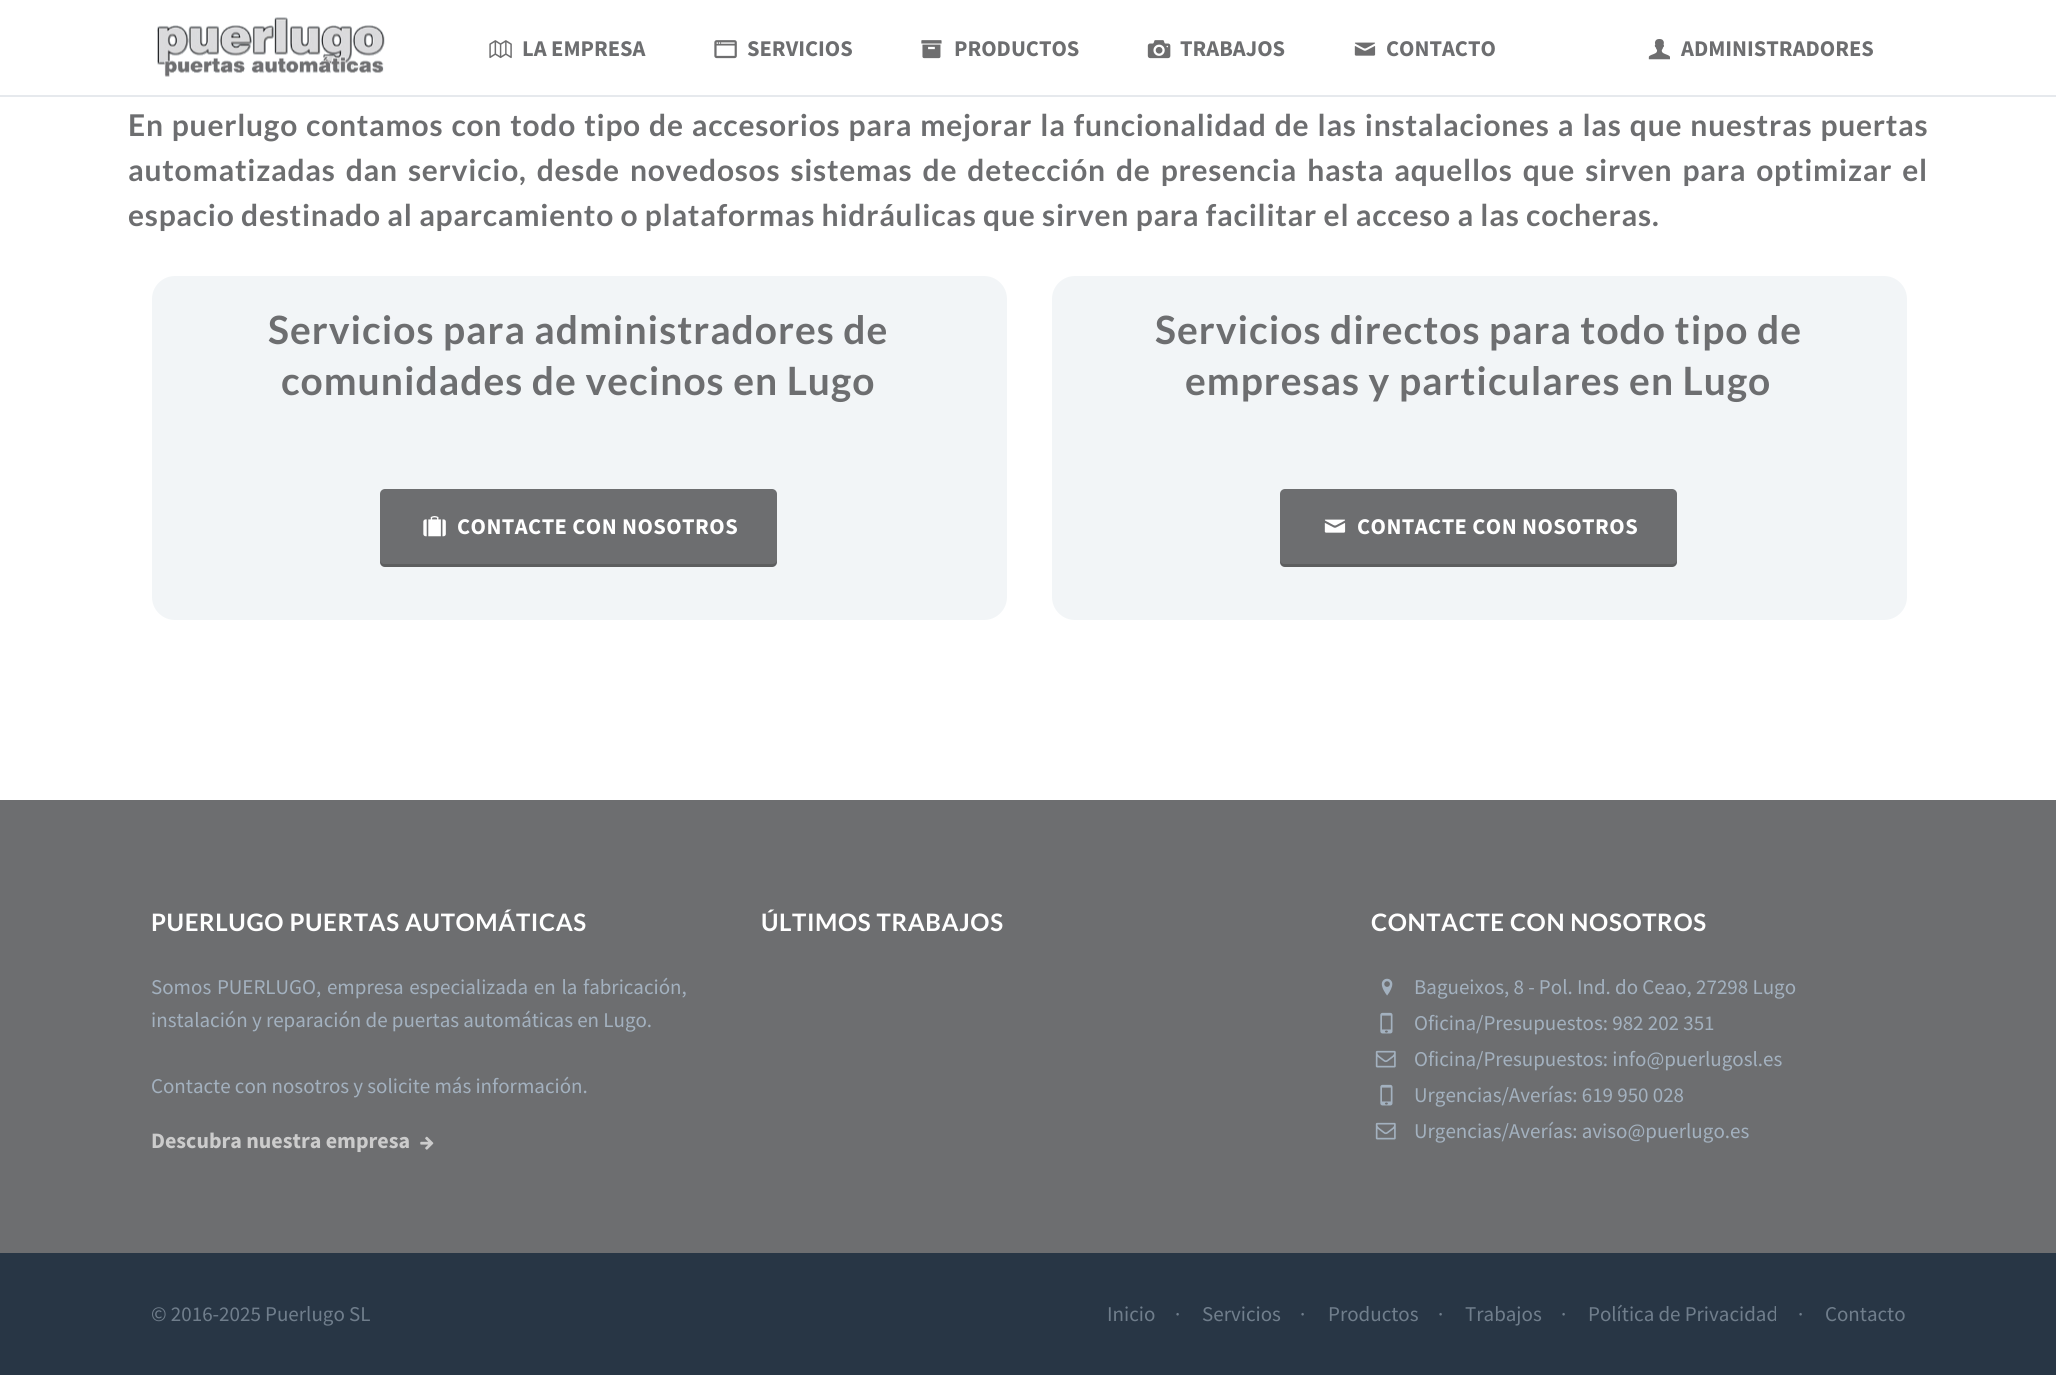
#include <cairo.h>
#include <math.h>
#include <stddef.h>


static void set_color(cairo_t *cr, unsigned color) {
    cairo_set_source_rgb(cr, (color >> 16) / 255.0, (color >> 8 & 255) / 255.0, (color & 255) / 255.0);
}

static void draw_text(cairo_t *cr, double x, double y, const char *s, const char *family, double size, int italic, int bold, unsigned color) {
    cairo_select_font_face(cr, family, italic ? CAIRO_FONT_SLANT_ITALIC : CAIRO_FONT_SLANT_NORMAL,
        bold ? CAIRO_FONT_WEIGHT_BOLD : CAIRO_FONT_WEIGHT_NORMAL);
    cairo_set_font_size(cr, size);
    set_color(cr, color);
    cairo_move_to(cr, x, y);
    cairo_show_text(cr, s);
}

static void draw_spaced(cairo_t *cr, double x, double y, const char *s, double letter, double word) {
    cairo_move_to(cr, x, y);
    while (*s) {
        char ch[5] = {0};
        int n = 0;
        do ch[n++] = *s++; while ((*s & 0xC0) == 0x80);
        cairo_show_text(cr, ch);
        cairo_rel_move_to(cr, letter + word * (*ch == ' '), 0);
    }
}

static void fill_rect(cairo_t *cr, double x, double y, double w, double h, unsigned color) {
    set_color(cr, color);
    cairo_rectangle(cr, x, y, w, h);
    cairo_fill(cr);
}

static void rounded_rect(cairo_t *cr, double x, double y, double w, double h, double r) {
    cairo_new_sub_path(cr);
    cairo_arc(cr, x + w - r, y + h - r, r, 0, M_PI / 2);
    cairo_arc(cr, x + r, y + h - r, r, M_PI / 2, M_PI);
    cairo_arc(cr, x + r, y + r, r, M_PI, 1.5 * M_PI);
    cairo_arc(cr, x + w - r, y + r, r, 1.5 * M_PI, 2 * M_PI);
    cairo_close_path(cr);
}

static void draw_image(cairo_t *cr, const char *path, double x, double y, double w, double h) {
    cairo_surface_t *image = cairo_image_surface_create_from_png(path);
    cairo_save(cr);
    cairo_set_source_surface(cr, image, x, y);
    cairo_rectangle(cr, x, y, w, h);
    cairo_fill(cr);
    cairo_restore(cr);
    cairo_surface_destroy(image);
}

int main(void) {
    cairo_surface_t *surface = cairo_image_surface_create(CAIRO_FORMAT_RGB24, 2056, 1375);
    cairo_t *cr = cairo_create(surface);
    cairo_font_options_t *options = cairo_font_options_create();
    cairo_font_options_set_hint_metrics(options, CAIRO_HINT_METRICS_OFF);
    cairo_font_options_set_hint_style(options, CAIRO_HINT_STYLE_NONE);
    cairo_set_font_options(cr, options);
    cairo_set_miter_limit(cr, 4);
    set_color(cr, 0xFFFFFF);
    cairo_paint(cr);
    fill_rect(cr, 0, 95, 2056, 2, 0xE6E9ED);
    draw_image(cr, "assets/img1.png", 157, 17, 228, 60);
    draw_image(cr, "assets/img2.png", 489, 40, 23, 19);
    draw_text(cr, 522, 56, "LA EMPRESA", "Source Sans Pro", 22.5, 0, 1, 0x6D6E70);
    draw_image(cr, "assets/img3.png", 714, 40, 23, 19);
    draw_text(cr, 747, 56, "SERVICIOS", "Source Sans Pro", 22.5, 0, 1, 0x6D6E70);
    draw_image(cr, "assets/img4.png", 921, 40, 21, 19);
    draw_text(cr, 954, 56, "PRODUCTOS", "Source Sans Pro", 22.5, 0, 1, 0x6D6E70);
    draw_image(cr, "assets/img5.png", 1147, 40, 24, 19);
    draw_text(cr, 1180, 56, "TRABAJOS", "Source Sans Pro", 22.5, 0, 1, 0x6D6E70);
    draw_image(cr, "assets/img6.png", 1354, 42, 22, 14);
    draw_text(cr, 1386, 56, "CONTACTO", "Source Sans Pro", 22.5, 0, 1, 0x6D6E70);
    draw_image(cr, "assets/img7.png", 1648, 39, 22, 21);
    draw_text(cr, 1681, 56, "ADMINISTRADORES", "Source Sans Pro", 22.5, 0, 1, 0x6D6E70);
    cairo_select_font_face(cr, "Lato", CAIRO_FONT_SLANT_NORMAL, CAIRO_FONT_WEIGHT_BOLD);
    cairo_set_font_size(cr, 30);
    draw_spaced(cr, 128, 136, "En puerlugo contamos con todo tipo de accesorios para mejorar la funcionalidad de las instalaciones a las que nuestras puertas", 0.75, 1.6);
    draw_spaced(cr, 128, 181, "automatizadas dan servicio, desde novedosos sistemas de detección de presencia hasta aquellos que sirven para optimizar el", 0.75, 3.6);
    draw_spaced(cr, 128, 226, "espacio destinado al aparcamiento o plataformas hidráulicas que sirven para facilitar el acceso a las cocheras.", 0.75, 0);
    set_color(cr, 0xF2F5F7);
    rounded_rect(cr, 152, 276, 855, 344, 23);
    cairo_fill(cr);
    cairo_set_font_size(cr, 39);
    set_color(cr, 0x6D6E70);
    draw_spaced(cr, 268, 344, "Servicios para administradores de", 1, 0);
    draw_spaced(cr, 281, 395, "comunidades de vecinos en Lugo", 1, 0);
    rounded_rect(cr, 380, 489, 397, 78, 5);
    cairo_fill(cr);
    cairo_set_source_rgba(cr, 0, 0, 0, 0.15);
    cairo_new_path(cr);
    cairo_move_to(cr, 380, 560);
    cairo_line_to(cr, 380, 562);
    cairo_curve_to(cr, 380, 565, 382, 567, 385, 567);
    cairo_line_to(cr, 772, 567);
    cairo_curve_to(cr, 775, 567, 777, 565, 777, 562);
    cairo_line_to(cr, 777, 560);
    cairo_curve_to(cr, 777, 562, 775, 564, 772, 564);
    cairo_line_to(cr, 384, 564);
    cairo_curve_to(cr, 382, 564, 380, 562, 380, 560);
    cairo_close_path(cr);
    cairo_fill(cr);
    draw_image(cr, "assets/img8.png", 423, 516, 23, 21);
    cairo_select_font_face(cr, "Source Sans Pro", CAIRO_FONT_SLANT_NORMAL, CAIRO_FONT_WEIGHT_BOLD);
    cairo_set_font_size(cr, 22.5);
    set_color(cr, 0xFFFFFF);
    draw_spaced(cr, 457, 534, "CONTACTE CON NOSOTROS", 0.45, 0);
    set_color(cr, 0xF2F5F7);
    rounded_rect(cr, 1052, 276, 855, 344, 23);
    cairo_fill(cr);
    cairo_select_font_face(cr, "Lato", CAIRO_FONT_SLANT_NORMAL, CAIRO_FONT_WEIGHT_BOLD);
    cairo_set_font_size(cr, 39);
    set_color(cr, 0x6D6E70);
    draw_spaced(cr, 1155, 344, "Servicios directos para todo tipo de", 1, 0);
    draw_spaced(cr, 1185, 395, "empresas y particulares en Lugo", 1, 0);
    rounded_rect(cr, 1280, 489, 397, 78, 5);
    cairo_fill(cr);
    cairo_set_source_rgba(cr, 0, 0, 0, 0.15);
    cairo_new_path(cr);
    cairo_move_to(cr, 1280, 560);
    cairo_line_to(cr, 1280, 562);
    cairo_curve_to(cr, 1280, 565, 1282, 567, 1285, 567);
    cairo_line_to(cr, 1672, 567);
    cairo_curve_to(cr, 1675, 567, 1677, 565, 1677, 562);
    cairo_line_to(cr, 1677, 560);
    cairo_curve_to(cr, 1677, 562, 1675, 564, 1672, 564);
    cairo_line_to(cr, 1284, 564);
    cairo_curve_to(cr, 1282, 564, 1280, 562, 1280, 560);
    cairo_close_path(cr);
    cairo_fill(cr);
    draw_image(cr, "assets/img9.png", 1324, 519, 22, 14);
    cairo_select_font_face(cr, "Source Sans Pro", CAIRO_FONT_SLANT_NORMAL, CAIRO_FONT_WEIGHT_BOLD);
    cairo_set_font_size(cr, 22.5);
    set_color(cr, 0xFFFFFF);
    draw_spaced(cr, 1357, 534, "CONTACTE CON NOSOTROS", 0.45, 0);
    fill_rect(cr, 0, 800, 2056, 453, 0x6D6E70);
    cairo_select_font_face(cr, "Lato", CAIRO_FONT_SLANT_NORMAL, CAIRO_FONT_WEIGHT_BOLD);
    cairo_set_font_size(cr, 24);
    set_color(cr, 0xFFFFFF);
    draw_spaced(cr, 151, 931, "PUERLUGO PUERTAS AUTOMÁTICAS", 0.6, 0);
    cairo_select_font_face(cr, "Source Sans Pro", CAIRO_FONT_SLANT_NORMAL, CAIRO_FONT_WEIGHT_NORMAL);
    cairo_set_font_size(cr, 21);
    set_color(cr, 0xA3B1BF);
    draw_spaced(cr, 151, 994, "Somos PUERLUGO, empresa especializada en la fabricación,", 0, 1.5);
    draw_text(cr, 151, 1027, "instalación y reparación de puertas automáticas en Lugo.", "Source Sans Pro", 21, 0, 0, 0xA3B1BF);
    draw_text(cr, 151, 1093, "Contacte con nosotros y solicite más información.", "Source Sans Pro", 21, 0, 0, 0xA3B1BF);
    draw_text(cr, 151, 1148, "Descubra nuestra empresa", "Source Sans Pro", 22, 0, 1, 0xCCCCCC);
    draw_image(cr, "assets/img10.png", 420, 1136, 14, 14);
    cairo_select_font_face(cr, "Lato", CAIRO_FONT_SLANT_NORMAL, CAIRO_FONT_WEIGHT_BOLD);
    cairo_set_font_size(cr, 24);
    set_color(cr, 0xFFFFFF);
    draw_spaced(cr, 761, 931, "ÚLTIMOS TRABAJOS", 0.6, 0);
    draw_spaced(cr, 1371, 931, "CONTACTE CON NOSOTROS", 0.6, 0);
    draw_image(cr, "assets/img11.png", 1381, 978, 12, 18);
    draw_text(cr, 1414, 994, "Bagueixos, 8 - Pol. Ind. do Ceao, 27298 Lugo", "Source Sans Pro", 21, 0, 0, 0xA3B1BF);
    draw_image(cr, "assets/img12.png", 1380, 1012, 13, 22);
    draw_text(cr, 1414, 1030, "Oficina/Presupuestos: 982 202 351", "Source Sans Pro", 21, 0, 0, 0xA3B1BF);
    draw_image(cr, "assets/img13.png", 1375, 1050, 21, 18);
    draw_text(cr, 1414, 1066, "Oficina/Presupuestos: info@puerlugosl.es", "Source Sans Pro", 21, 0, 0, 0xA3B1BF);
    draw_image(cr, "assets/img12.png", 1380, 1084, 13, 22);
    draw_text(cr, 1414, 1102, "Urgencias/Averías: 619 950 028", "Source Sans Pro", 21, 0, 0, 0xA3B1BF);
    draw_image(cr, "assets/img13.png", 1375, 1122, 21, 18);
    draw_text(cr, 1414, 1138, "Urgencias/Averías: aviso@puerlugo.es", "Source Sans Pro", 21, 0, 0, 0xA3B1BF);
    fill_rect(cr, 0, 1253, 2056, 122, 0x283645);
    draw_text(cr, 151, 1321, "© 2016-2025 Puerlugo SL", "Source Sans Pro", 21, 0, 0, 0x707E8C);
    draw_text(cr, 1107, 1321, "Inicio", "Source Sans Pro", 21, 0, 0, 0x707E8C);
    draw_text(cr, 1175, 1321, "·", "Source Sans Pro", 21, 0, 0, 0x707E8C);
    draw_text(cr, 1202, 1321, "Servicios", "Source Sans Pro", 21, 0, 0, 0x707E8C);
    draw_text(cr, 1300, 1321, "·", "Source Sans Pro", 21, 0, 0, 0x707E8C);
    draw_text(cr, 1328, 1321, "Productos", "Source Sans Pro", 21, 0, 0, 0x707E8C);
    draw_text(cr, 1438, 1321, "·", "Source Sans Pro", 21, 0, 0, 0x707E8C);
    draw_text(cr, 1465, 1321, "Trabajos", "Source Sans Pro", 21, 0, 0, 0x707E8C);
    draw_text(cr, 1561, 1321, "·", "Source Sans Pro", 21, 0, 0, 0x707E8C);
    draw_text(cr, 1588, 1321, "Política de Privacidad", "Source Sans Pro", 21, 0, 0, 0x707E8C);
    draw_text(cr, 1798, 1321, "·", "Source Sans Pro", 21, 0, 0, 0x707E8C);
    draw_text(cr, 1825, 1321, "Contacto", "Source Sans Pro", 21, 0, 0, 0x707E8C);
    cairo_surface_write_to_png(surface, "output.png");
    cairo_font_options_destroy(options);
    cairo_destroy(cr);
    cairo_surface_destroy(surface);
    return 0;
}
